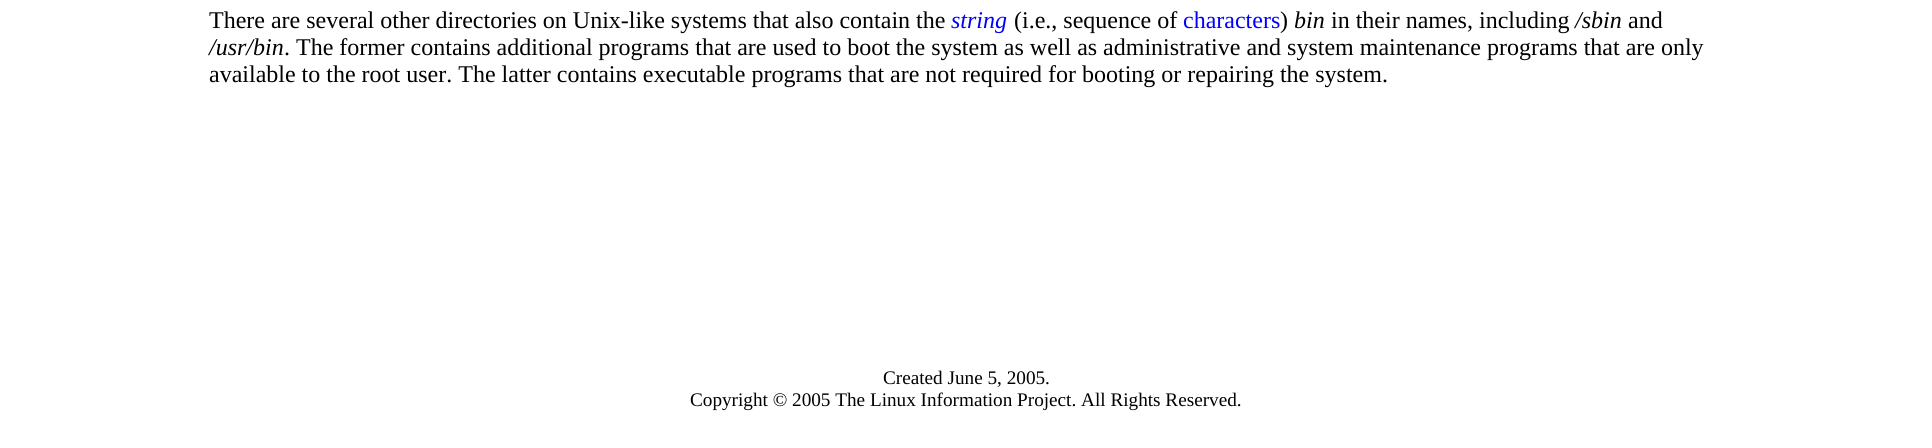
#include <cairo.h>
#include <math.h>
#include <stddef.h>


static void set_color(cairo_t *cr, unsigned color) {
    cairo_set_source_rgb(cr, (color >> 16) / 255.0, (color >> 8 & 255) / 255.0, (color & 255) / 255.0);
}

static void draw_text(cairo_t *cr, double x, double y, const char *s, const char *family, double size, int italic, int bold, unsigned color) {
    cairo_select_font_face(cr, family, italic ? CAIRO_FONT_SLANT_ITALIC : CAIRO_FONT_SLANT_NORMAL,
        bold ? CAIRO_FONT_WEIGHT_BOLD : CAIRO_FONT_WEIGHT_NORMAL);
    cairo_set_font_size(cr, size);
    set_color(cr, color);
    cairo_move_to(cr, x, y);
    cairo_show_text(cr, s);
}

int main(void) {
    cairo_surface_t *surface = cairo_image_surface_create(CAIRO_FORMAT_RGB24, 1932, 448);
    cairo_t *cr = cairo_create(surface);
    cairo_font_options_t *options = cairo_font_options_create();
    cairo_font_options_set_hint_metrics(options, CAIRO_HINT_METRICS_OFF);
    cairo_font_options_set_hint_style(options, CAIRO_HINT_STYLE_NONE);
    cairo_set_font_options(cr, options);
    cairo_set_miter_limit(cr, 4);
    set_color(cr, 0xFFFFFF);
    cairo_paint(cr);
    draw_text(cr, 209, 28, "There are several other directories on Unix-like systems that also contain the", "Liberation Serif", 24, 0, 0, 0x000000);
    draw_text(cr, 951, 28, "string", "Liberation Serif", 24, 1, 0, 0x0000FF);
    draw_text(cr, 1014, 28, "(i.e., sequence of", "Liberation Serif", 24, 0, 0, 0x000000);
    draw_text(cr, 1183, 28, "characters", "Liberation Serif", 24, 0, 0, 0x0000FF);
    draw_text(cr, 1280, 28, ")", "Liberation Serif", 24, 0, 0, 0x000000);
    draw_text(cr, 1294, 28, "bin", "Liberation Serif", 24, 1, 0, 0x000000);
    draw_text(cr, 1331, 28, "in their names, including", "Liberation Serif", 24, 0, 0, 0x000000);
    draw_text(cr, 1575, 28, "/sbin", "Liberation Serif", 24, 1, 0, 0x000000);
    draw_text(cr, 1628, 28, "and", "Liberation Serif", 24, 0, 0, 0x000000);
    draw_text(cr, 209, 55, "/usr/bin", "Liberation Serif", 24, 1, 0, 0x000000);
    draw_text(cr, 284, 55, ". The former contains additional programs that are used to boot the system as well as administrative and system maintenance programs that are only", "Liberation Serif", 24, 0, 0, 0x000000);
    draw_text(cr, 209, 82, "available to the root user. The latter contains executable programs that are not required for booting or repairing the system.", "Liberation Serif", 24, 0, 0, 0x000000);
    draw_text(cr, 883, 384, "Created June 5, 2005.", "Liberation Serif", 19.2, 0, 0, 0x000000);
    draw_text(cr, 690, 406, "Copyright © 2005 The Linux Information Project. All Rights Reserved.", "Liberation Serif", 19.2, 0, 0, 0x000000);
    cairo_surface_write_to_png(surface, "output.png");
    cairo_font_options_destroy(options);
    cairo_destroy(cr);
    cairo_surface_destroy(surface);
    return 0;
}
